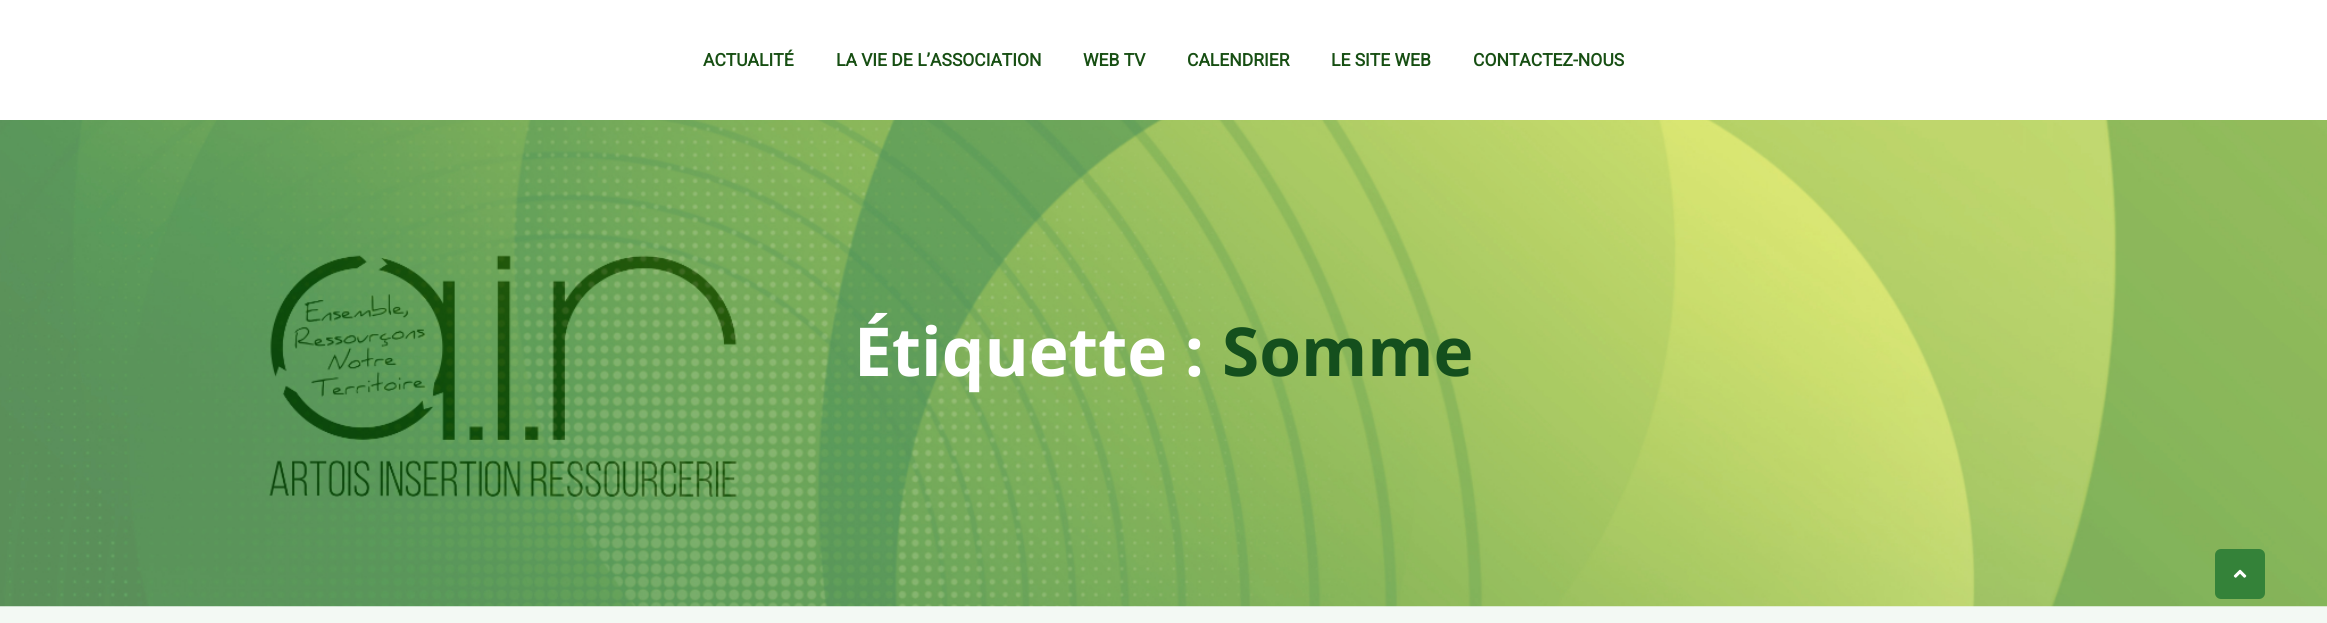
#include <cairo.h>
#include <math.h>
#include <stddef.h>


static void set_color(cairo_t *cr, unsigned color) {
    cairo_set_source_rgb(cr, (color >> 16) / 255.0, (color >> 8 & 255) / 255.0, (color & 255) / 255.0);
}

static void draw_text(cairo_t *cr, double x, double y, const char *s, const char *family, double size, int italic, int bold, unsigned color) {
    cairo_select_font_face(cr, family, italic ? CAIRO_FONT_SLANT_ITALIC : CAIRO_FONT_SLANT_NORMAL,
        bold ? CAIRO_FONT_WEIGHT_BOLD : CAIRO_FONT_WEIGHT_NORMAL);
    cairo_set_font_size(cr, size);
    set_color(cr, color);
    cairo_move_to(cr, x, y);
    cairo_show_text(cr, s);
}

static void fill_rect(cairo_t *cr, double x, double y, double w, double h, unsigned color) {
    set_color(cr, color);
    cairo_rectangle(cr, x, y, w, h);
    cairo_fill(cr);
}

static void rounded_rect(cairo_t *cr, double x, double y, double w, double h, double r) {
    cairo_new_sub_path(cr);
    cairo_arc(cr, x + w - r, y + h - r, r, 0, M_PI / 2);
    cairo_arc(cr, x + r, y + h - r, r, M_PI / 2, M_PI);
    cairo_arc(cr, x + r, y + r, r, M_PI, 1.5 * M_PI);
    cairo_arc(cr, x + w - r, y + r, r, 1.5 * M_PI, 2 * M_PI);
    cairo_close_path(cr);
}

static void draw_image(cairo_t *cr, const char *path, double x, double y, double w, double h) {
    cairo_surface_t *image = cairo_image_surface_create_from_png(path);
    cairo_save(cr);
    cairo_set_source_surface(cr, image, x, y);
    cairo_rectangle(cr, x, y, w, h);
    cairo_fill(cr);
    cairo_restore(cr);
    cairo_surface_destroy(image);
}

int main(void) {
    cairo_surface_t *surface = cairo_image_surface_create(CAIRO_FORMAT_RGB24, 2327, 623);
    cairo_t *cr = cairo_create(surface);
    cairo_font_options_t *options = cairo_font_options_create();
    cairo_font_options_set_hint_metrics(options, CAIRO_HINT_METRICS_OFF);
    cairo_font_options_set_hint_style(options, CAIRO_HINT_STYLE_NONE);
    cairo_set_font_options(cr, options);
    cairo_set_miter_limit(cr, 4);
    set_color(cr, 0xF3F9F4);
    cairo_paint(cr);
    fill_rect(cr, 0, 0, 2327, 120, 0xFFFFFF);
    draw_text(cr, 703, 66, "ACTUALITÉ", "Roboto", 17.5, 0, 1, 0x174F13);
    draw_text(cr, 836, 66, "LA VIE DE L’ASSOCIATION", "Roboto", 17.5, 0, 1, 0x174F13);
    draw_text(cr, 1083, 66, "WEB TV", "Roboto", 17.5, 0, 1, 0x174F13);
    draw_text(cr, 1187, 66, "CALENDRIER", "Roboto", 17.5, 0, 1, 0x174F13);
    draw_text(cr, 1331, 66, "LE SITE WEB", "Roboto", 17.5, 0, 1, 0x174F13);
    draw_text(cr, 1473, 66, "CONTACTEZ-NOUS", "Roboto", 17.5, 0, 1, 0x174F13);
    draw_image(cr, "assets/img1.png", 0, 120, 2327, 487);
    draw_text(cr, 854, 376, "Étiquette :", "Open Sans", 67.5, 0, 1, 0xFFFFFF);
    draw_text(cr, 1222, 376, "Somme", "Open Sans", 67.5, 0, 1, 0x144F1D);
    set_color(cr, 0x348239);
    rounded_rect(cr, 2215, 549, 50, 50, 6);
    cairo_fill(cr);
    draw_image(cr, "assets/img2.png", 2233, 569, 14, 9);
    cairo_surface_write_to_png(surface, "output.png");
    cairo_font_options_destroy(options);
    cairo_destroy(cr);
    cairo_surface_destroy(surface);
    return 0;
}
